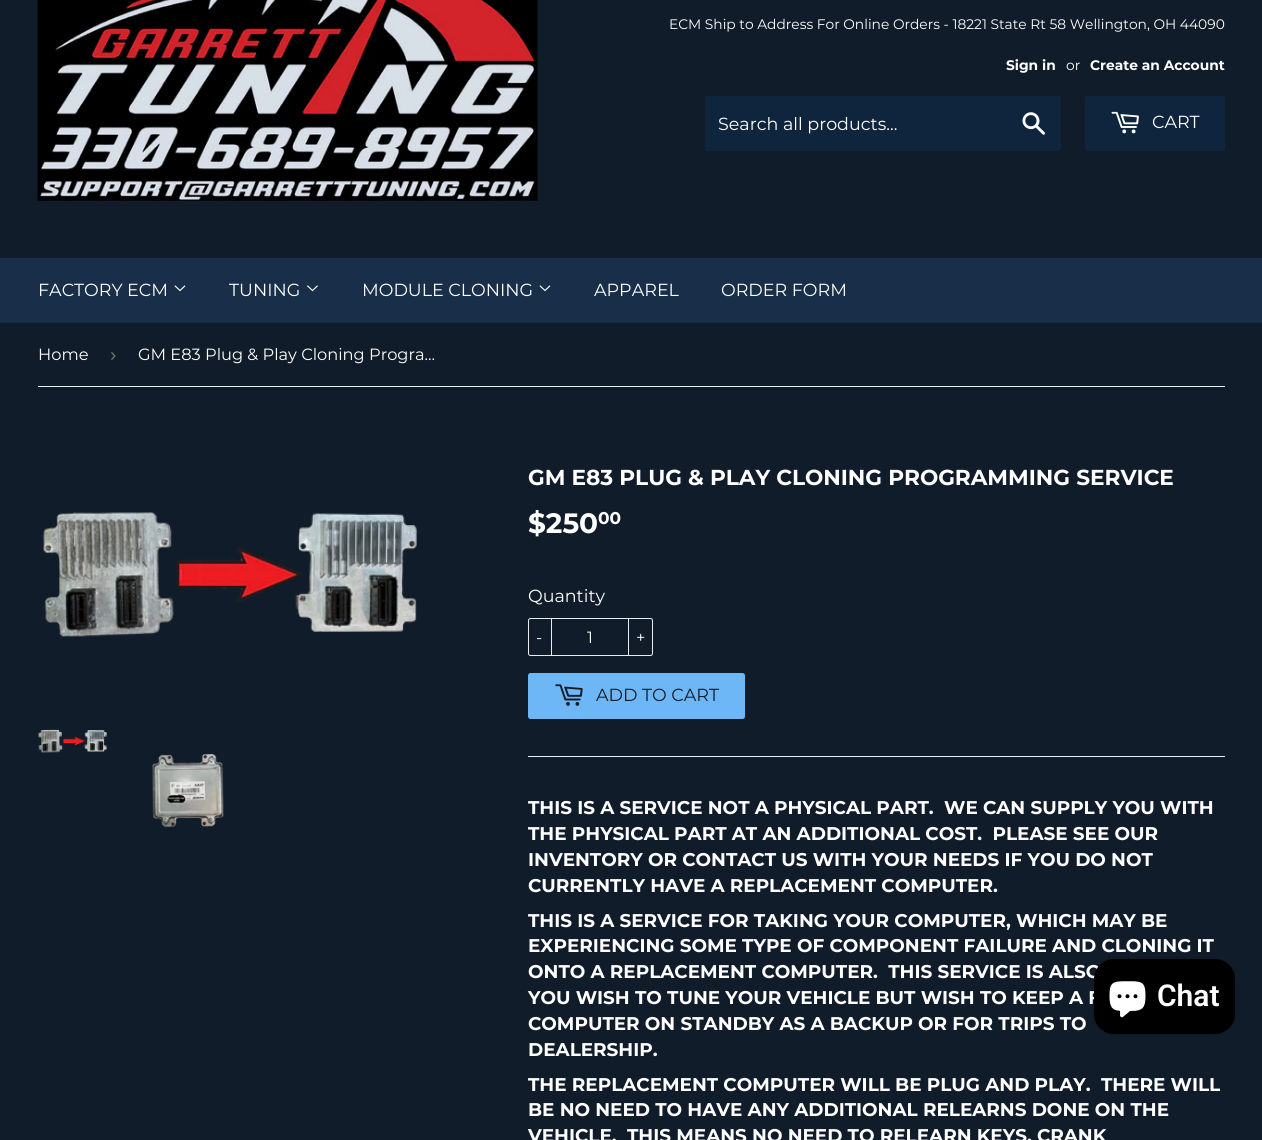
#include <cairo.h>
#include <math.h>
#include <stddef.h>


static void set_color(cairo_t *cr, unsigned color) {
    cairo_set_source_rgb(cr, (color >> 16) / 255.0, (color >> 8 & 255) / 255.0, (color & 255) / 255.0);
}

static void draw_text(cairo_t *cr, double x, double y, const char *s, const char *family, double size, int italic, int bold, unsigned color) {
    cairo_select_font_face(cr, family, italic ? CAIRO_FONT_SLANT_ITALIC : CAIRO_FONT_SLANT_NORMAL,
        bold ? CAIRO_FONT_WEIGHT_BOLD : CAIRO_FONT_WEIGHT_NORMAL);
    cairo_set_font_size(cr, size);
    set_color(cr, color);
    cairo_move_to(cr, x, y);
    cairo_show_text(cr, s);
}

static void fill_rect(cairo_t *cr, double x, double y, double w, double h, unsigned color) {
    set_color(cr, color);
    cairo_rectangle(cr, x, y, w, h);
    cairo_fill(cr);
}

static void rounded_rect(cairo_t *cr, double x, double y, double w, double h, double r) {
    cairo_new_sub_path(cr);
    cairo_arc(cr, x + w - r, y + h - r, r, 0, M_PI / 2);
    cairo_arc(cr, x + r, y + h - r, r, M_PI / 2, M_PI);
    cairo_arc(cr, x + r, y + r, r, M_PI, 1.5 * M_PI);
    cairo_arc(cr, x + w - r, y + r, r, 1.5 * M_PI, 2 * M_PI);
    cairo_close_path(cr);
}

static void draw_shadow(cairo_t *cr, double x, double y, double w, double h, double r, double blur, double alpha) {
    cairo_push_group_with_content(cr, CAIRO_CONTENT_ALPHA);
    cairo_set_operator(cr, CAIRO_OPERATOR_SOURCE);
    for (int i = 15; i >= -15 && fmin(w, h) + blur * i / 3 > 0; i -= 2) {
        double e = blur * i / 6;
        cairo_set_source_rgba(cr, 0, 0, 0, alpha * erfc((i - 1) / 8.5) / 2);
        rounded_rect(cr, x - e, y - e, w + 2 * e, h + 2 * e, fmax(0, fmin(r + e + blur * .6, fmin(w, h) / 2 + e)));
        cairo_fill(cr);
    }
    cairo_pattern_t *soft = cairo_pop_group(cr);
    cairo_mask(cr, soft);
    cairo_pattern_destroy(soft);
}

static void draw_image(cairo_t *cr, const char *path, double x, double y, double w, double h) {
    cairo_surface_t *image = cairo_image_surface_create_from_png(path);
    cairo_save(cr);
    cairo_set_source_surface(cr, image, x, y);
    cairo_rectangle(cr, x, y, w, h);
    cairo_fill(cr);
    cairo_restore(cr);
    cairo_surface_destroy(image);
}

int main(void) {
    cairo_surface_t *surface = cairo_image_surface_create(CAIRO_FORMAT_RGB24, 1262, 1140);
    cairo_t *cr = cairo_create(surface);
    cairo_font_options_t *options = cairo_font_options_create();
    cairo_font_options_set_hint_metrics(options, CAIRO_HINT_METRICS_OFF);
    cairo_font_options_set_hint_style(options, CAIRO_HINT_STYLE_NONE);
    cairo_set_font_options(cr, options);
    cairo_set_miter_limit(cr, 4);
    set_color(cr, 0x111C2A);
    cairo_paint(cr);
    draw_image(cr, "assets/img1.png", 37, 0, 501, 201);
    draw_text(cr, 669, 29, "ECM Ship to Address For Online Orders - 18221 State Rt 58 Wellington, OH 44090", "Montserrat", 13.8, 0, 0, 0xFFFFFF);
    draw_text(cr, 1006, 70, "Sign in", "Montserrat", 13.8, 0, 1, 0xFFFFFF);
    draw_text(cr, 1066, 70, "or", "Montserrat", 13.8, 0, 0, 0xFFFFFF);
    draw_text(cr, 1090, 70, "Create an Account", "Montserrat", 13.8, 0, 1, 0xFFFFFF);
    set_color(cr, 0x0F243D);
    rounded_rect(cr, 705, 96, 356, 55, 2.5);
    cairo_fill(cr);
    draw_text(cr, 718, 130, "Search all products...", "Montserrat", 17.5, 0, 0, 0xFFFFFF);
    draw_image(cr, "assets/img2.png", 1022, 112, 23, 23);
    set_color(cr, 0x0F243D);
    rounded_rect(cr, 1085, 96, 140, 55, 2.5);
    cairo_fill(cr);
    draw_image(cr, "assets/img3.png", 1111, 111, 28, 23);
    draw_text(cr, 1152, 128, "CART", "Montserrat", 17.5, 0, 0, 0xFFFFFF);
    fill_rect(cr, 0, 258, 1262, 65, 0x182E49);
    draw_text(cr, 38, 296, "FACTORY ECM", "Montserrat", 17.5, 0, 0, 0xFFFFFF);
    draw_image(cr, "assets/img4.png", 174, 285, 12, 7);
    draw_text(cr, 229, 296, "TUNING", "Montserrat", 17.5, 0, 0, 0xFFFFFF);
    draw_image(cr, "assets/img5.png", 307, 285, 11, 7);
    draw_text(cr, 362, 296, "MODULE CLONING", "Montserrat", 17.5, 0, 0, 0xFFFFFF);
    draw_image(cr, "assets/img4.png", 539, 285, 12, 7);
    draw_text(cr, 594, 296, "APPAREL", "Montserrat", 17.5, 0, 0, 0xFFFFFF);
    draw_text(cr, 721, 296, "ORDER FORM", "Montserrat", 17.5, 0, 0, 0xFFFFFF);
    fill_rect(cr, 38, 386, 1187, 1, 0xECECEC);
    draw_text(cr, 38, 360, "Home", "Montserrat", 16.25, 0, 0, 0xFFFFFF);
    draw_text(cr, 110, 361, "›", "Liberation Sans", 19, 0, 0, 0x767676);
    draw_text(cr, 138, 360, "GM E83 Plug & Play Cloning Progra…", "Montserrat", 16.25, 0, 0, 0xFFFFFF);
    draw_image(cr, "assets/img6.png", 43, 512, 374, 125);
    draw_image(cr, "assets/img7.png", 38, 729, 69, 24);
    draw_image(cr, "assets/img8.png", 152, 754, 72, 74);
    draw_text(cr, 528, 485, "GM E83 PLUG & PLAY CLONING PROGRAMMING SERVICE", "Montserrat", 21.65, 0, 1, 0xFFFFFF);
    draw_text(cr, 528, 533, "$250", "Montserrat", 28, 0, 1, 0xFFFFFF);
    draw_text(cr, 598, 524, "00", "Montserrat", 17, 0, 1, 0xFFFFFF);
    draw_text(cr, 528, 602, "Quantity", "Montserrat", 17.5, 0, 0, 0xFFFFFF);
    rounded_rect(cr, 528.5, 618.5, 124, 37, 2);
    set_color(cr, 0xECECEC);
    cairo_set_line_width(cr, 1);
    cairo_stroke(cr);
    fill_rect(cr, 551, 618, 1, 38, 0xECECEC);
    draw_text(cr, 536, 643, "-", "Montserrat", 16.25, 0, 0, 0xFFFFFF);
    draw_text(cr, 587, 643, "1", "Montserrat", 16.25, 0, 0, 0xFFFFFF);
    fill_rect(cr, 628, 618, 1, 38, 0xECECEC);
    draw_text(cr, 636, 643, "+", "Montserrat", 16.25, 0, 0, 0xFFFFFF);
    set_color(cr, 0x6DB7F6);
    rounded_rect(cr, 528, 673, 217, 46, 2.5);
    cairo_fill(cr);
    draw_image(cr, "assets/img9.png", 555, 684, 28, 22);
    draw_text(cr, 596, 701, "ADD TO CART", "Montserrat", 17.5, 0, 0, 0x111C2A);
    fill_rect(cr, 528, 756, 697, 1, 0xECECEC);
    draw_text(cr, 528, 814, "THIS IS A SERVICE NOT A PHYSICAL PART.  WE CAN SUPPLY YOU WITH", "Montserrat", 18.4, 0, 1, 0xFFFFFF);
    draw_text(cr, 528, 840, "THE PHYSICAL PART AT AN ADDITIONAL COST.  PLEASE SEE OUR", "Montserrat", 18.4, 0, 1, 0xFFFFFF);
    draw_text(cr, 528, 866, "INVENTORY OR CONTACT US WITH YOUR NEEDS IF YOU DO NOT", "Montserrat", 18.4, 0, 1, 0xFFFFFF);
    draw_text(cr, 528, 892, "CURRENTLY HAVE A REPLACEMENT COMPUTER.", "Montserrat", 18.4, 0, 1, 0xFFFFFF);
    draw_text(cr, 528, 927, "THIS IS A SERVICE FOR TAKING YOUR COMPUTER, WHICH MAY BE", "Montserrat", 18.4, 0, 1, 0xFFFFFF);
    draw_text(cr, 528, 952, "EXPERIENCING SOME TYPE OF COMPONENT FAILURE AND CLONING IT", "Montserrat", 18.4, 0, 1, 0xFFFFFF);
    draw_text(cr, 528, 978, "ONTO A REPLACEMENT COMPUTER.  THIS SERVICE IS ALSO", "Montserrat", 18.4, 0, 1, 0xFFFFFF);
    draw_text(cr, 528, 1004, "YOU WISH TO TUNE YOUR VEHICLE BUT WISH TO KEEP A F", "Montserrat", 18.4, 0, 1, 0xFFFFFF);
    draw_text(cr, 528, 1030, "COMPUTER ON STANDBY AS A BACKUP OR FOR TRIPS TO", "Montserrat", 18.4, 0, 1, 0xFFFFFF);
    draw_text(cr, 528, 1056, "DEALERSHIP.", "Montserrat", 18.4, 0, 1, 0xFFFFFF);
    draw_text(cr, 528, 1091, "THE REPLACEMENT COMPUTER WILL BE PLUG AND PLAY.  THERE WILL", "Montserrat", 18.4, 0, 1, 0xFFFFFF);
    draw_text(cr, 528, 1116, "BE NO NEED TO HAVE ANY ADDITIONAL RELEARNS DONE ON THE", "Montserrat", 18.4, 0, 1, 0xFFFFFF);
    draw_text(cr, 528, 1142, "VEHICLE.  THIS MEANS NO NEED TO RELEARN KEYS, CRANK", "Montserrat", 18.4, 0, 1, 0xFFFFFF);
    set_color(cr, 0x000000);
    draw_shadow(cr, 1094, 959, 141, 75, 20, 3, 0.15);
    set_color(cr, 0x000000);
    rounded_rect(cr, 1094, 959, 141, 75, 20);
    cairo_fill(cr);
    draw_image(cr, "assets/img10.png", 1109, 981, 37, 37);
    draw_text(cr, 1157, 1006, "Chat", "Roboto SemiBold", 30, 0, 0, 0xFFFFFF);
    cairo_surface_write_to_png(surface, "output.png");
    cairo_font_options_destroy(options);
    cairo_destroy(cr);
    cairo_surface_destroy(surface);
    return 0;
}
